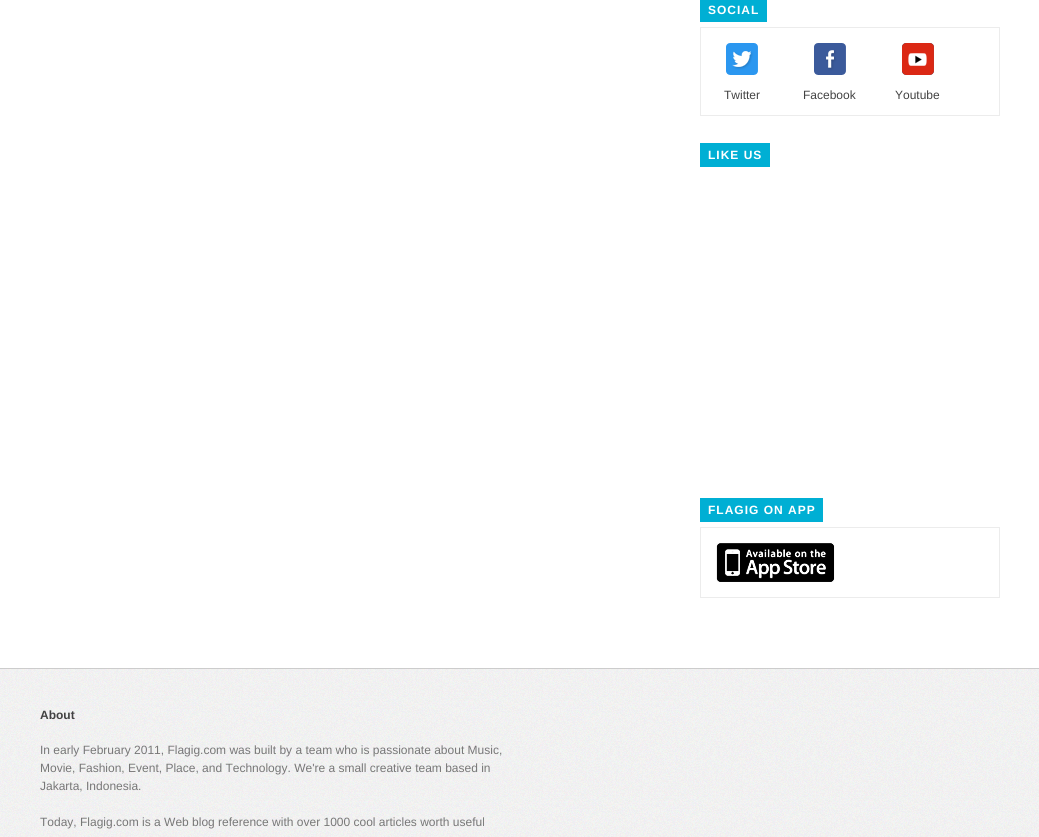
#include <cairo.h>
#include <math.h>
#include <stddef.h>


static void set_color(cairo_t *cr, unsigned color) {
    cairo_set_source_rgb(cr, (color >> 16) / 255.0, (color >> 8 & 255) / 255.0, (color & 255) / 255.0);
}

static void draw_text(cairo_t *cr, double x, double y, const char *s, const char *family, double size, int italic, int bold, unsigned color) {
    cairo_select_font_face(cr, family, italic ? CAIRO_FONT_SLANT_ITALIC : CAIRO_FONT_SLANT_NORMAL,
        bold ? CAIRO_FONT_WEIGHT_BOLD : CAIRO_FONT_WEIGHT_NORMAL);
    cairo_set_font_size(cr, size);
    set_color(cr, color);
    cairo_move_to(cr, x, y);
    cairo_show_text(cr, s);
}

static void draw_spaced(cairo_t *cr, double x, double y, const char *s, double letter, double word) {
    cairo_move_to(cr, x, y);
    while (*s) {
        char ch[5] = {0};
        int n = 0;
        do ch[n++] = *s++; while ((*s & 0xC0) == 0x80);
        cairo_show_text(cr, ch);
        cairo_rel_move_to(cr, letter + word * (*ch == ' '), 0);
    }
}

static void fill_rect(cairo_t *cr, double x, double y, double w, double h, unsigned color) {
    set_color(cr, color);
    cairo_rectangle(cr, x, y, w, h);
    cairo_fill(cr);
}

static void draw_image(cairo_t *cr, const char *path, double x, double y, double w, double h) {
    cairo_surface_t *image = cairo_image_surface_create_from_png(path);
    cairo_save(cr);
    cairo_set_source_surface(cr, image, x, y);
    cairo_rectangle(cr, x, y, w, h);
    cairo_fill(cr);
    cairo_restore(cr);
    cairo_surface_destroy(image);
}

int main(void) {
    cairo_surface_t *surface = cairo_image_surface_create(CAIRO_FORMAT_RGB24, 1039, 837);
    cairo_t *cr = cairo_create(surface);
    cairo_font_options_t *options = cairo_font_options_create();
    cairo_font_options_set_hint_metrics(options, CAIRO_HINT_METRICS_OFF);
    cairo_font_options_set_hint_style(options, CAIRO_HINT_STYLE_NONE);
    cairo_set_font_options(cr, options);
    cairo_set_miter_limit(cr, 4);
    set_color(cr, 0xFFFFFF);
    cairo_paint(cr);
    fill_rect(cr, 700, 0, 67, 22, 0x00AFD4);
    cairo_select_font_face(cr, "Liberation Sans", CAIRO_FONT_SLANT_NORMAL, CAIRO_FONT_WEIGHT_BOLD);
    cairo_set_font_size(cr, 12);
    set_color(cr, 0xFFFFFF);
    draw_spaced(cr, 708, 14, "SOCIAL", 1, 0);
    cairo_rectangle(cr, 700.5, 27.5, 299, 88);
    set_color(cr, 0xECECEC);
    cairo_set_line_width(cr, 1);
    cairo_stroke(cr);
    draw_image(cr, "assets/img1.png", 726, 43, 32, 32);
    draw_text(cr, 724, 99, "Twitter", "Liberation Sans", 12, 0, 0, 0x424242);
    draw_image(cr, "assets/img2.png", 814, 43, 32, 32);
    draw_text(cr, 803, 99, "Facebook", "Liberation Sans", 12, 0, 0, 0x424242);
    draw_image(cr, "assets/img3.png", 902, 43, 32, 32);
    draw_text(cr, 895, 99, "Youtube", "Liberation Sans", 12, 0, 0, 0x424242);
    fill_rect(cr, 700, 143, 70, 24, 0x00AFD4);
    cairo_select_font_face(cr, "Liberation Sans", CAIRO_FONT_SLANT_NORMAL, CAIRO_FONT_WEIGHT_BOLD);
    set_color(cr, 0xFFFFFF);
    draw_spaced(cr, 708, 159, "LIKE US", 1, 0);
    fill_rect(cr, 700, 498, 123, 24, 0x00AFD4);
    set_color(cr, 0xFFFFFF);
    draw_spaced(cr, 708, 514, "FLAGIG ON APP", 1, 0);
    cairo_rectangle(cr, 700.5, 527.5, 299, 70);
    set_color(cr, 0xECECEC);
    cairo_stroke(cr);
    draw_image(cr, "assets/img4.png", 716, 543, 119, 39);
    draw_image(cr, "assets/img5.png", 0, 669, 1039, 168);
    fill_rect(cr, 0, 668, 1039, 1, 0xCCCCCC);
    draw_text(cr, 40, 719, "About", "Liberation Sans", 12, 0, 1, 0x424242);
    draw_text(cr, 40, 754, "In early February 2011, Flagig.com was built by a team who is passionate about Music,", "Liberation Sans", 12, 0, 0, 0x777777);
    draw_text(cr, 40, 772, "Movie, Fashion, Event, Place, and Technology. We're a small creative team based in", "Liberation Sans", 12, 0, 0, 0x777777);
    draw_text(cr, 40, 790, "Jakarta, Indonesia.", "Liberation Sans", 12, 0, 0, 0x777777);
    draw_text(cr, 40, 826, "Today, Flagig.com is a Web blog reference with over 1000 cool articles worth useful", "Liberation Sans", 12, 0, 0, 0x777777);
    cairo_surface_write_to_png(surface, "output.png");
    cairo_font_options_destroy(options);
    cairo_destroy(cr);
    cairo_surface_destroy(surface);
    return 0;
}
